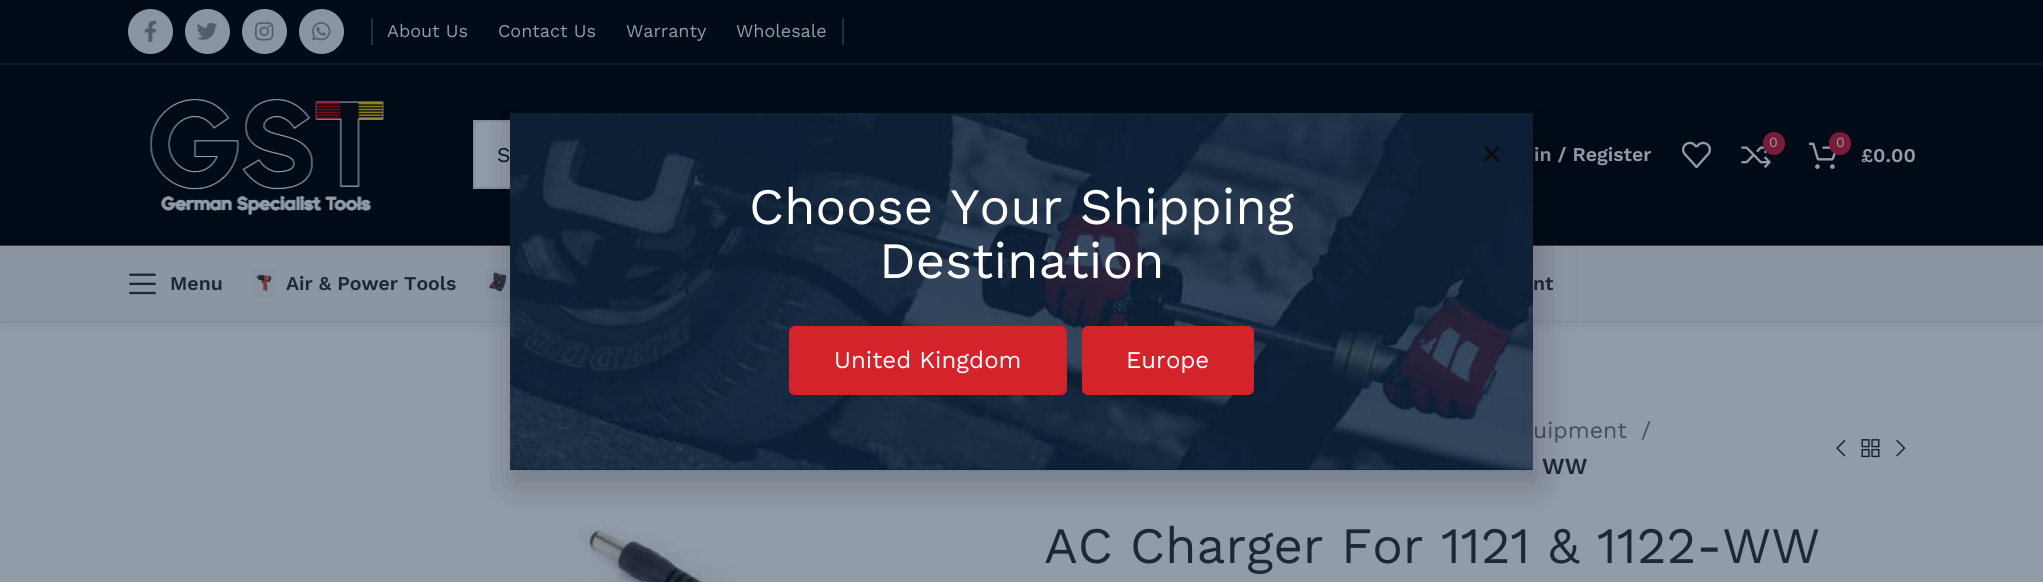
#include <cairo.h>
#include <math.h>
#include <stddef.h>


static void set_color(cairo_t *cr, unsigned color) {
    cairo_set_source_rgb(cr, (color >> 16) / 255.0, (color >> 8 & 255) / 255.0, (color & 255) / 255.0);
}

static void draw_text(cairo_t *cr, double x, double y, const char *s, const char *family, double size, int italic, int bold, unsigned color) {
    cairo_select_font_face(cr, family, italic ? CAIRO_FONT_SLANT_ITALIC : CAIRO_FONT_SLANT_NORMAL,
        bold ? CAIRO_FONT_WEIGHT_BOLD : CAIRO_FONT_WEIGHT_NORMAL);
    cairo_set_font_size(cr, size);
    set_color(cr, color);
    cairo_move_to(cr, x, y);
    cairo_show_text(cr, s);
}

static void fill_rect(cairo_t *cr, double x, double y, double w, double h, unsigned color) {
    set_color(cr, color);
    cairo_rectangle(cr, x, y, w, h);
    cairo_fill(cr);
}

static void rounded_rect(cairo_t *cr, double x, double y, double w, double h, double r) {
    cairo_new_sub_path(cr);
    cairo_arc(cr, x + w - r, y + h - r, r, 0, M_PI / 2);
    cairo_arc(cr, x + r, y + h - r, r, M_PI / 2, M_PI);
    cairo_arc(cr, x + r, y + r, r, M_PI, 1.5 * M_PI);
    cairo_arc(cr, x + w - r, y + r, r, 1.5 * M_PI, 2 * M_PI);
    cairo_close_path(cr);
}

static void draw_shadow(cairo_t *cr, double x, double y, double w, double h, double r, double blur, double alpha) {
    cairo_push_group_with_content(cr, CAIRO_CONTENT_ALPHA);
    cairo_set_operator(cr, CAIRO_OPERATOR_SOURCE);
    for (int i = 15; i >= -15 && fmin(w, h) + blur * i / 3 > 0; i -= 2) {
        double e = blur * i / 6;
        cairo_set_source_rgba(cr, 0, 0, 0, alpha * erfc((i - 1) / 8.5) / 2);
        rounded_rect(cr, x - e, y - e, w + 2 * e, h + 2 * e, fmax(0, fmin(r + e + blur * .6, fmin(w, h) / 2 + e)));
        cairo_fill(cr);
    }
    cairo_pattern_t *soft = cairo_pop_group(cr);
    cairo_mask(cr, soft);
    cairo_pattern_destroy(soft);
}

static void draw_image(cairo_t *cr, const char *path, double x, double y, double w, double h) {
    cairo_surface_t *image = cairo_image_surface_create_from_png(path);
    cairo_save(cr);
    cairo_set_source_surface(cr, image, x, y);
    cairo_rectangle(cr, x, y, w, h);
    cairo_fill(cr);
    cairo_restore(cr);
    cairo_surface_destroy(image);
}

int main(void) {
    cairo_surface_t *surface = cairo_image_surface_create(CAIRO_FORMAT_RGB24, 2043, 582);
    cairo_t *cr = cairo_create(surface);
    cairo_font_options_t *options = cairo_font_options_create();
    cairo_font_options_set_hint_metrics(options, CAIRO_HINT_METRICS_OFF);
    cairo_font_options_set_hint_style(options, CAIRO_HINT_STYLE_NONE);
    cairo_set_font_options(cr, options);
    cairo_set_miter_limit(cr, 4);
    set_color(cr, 0x929CA9);
    cairo_paint(cr);
    fill_rect(cr, 0, 0, 2043, 63, 0x000B17);
    fill_rect(cr, 0, 63, 2043, 2, 0x0F1A25);
    set_color(cr, 0x8A95A1);
    cairo_arc(cr, 150.5, 31.5, 22.5, 0, 2 * M_PI);
    cairo_fill(cr);
    draw_image(cr, "assets/img1.png", 144, 20, 13, 22);
    cairo_arc(cr, 207.5, 31.5, 22.5, 0, 2 * M_PI);
    cairo_fill(cr);
    draw_image(cr, "assets/img2.png", 197, 22, 21, 18);
    cairo_arc(cr, 264.5, 31.5, 22.5, 0, 2 * M_PI);
    cairo_fill(cr);
    draw_image(cr, "assets/img3.png", 255, 22, 19, 19);
    cairo_arc(cr, 321.5, 31.5, 22.5, 0, 2 * M_PI);
    cairo_fill(cr);
    draw_image(cr, "assets/img4.png", 312, 22, 19, 19);
    fill_rect(cr, 371, 18, 2, 27, 0x252F3C);
    draw_text(cr, 387, 37, "About Us", "Work Sans", 18, 0, 0, 0x929CA9);
    draw_text(cr, 498, 37, "Contact Us", "Work Sans", 18, 0, 0, 0x929CA9);
    draw_text(cr, 626, 37, "Warranty", "Work Sans", 18, 0, 0, 0x929CA9);
    draw_text(cr, 736, 37, "Wholesale", "Work Sans", 18, 0, 0, 0x929CA9);
    fill_rect(cr, 842, 18, 2, 27, 0x252F3C);
    fill_rect(cr, 0, 65, 2043, 180, 0x000B17);
    fill_rect(cr, 0, 245, 2043, 1, 0x791D37);
    draw_image(cr, "assets/img5.png", 150, 99, 234, 116);
    fill_rect(cr, 475, 122, 35, 65, 0x929CA9);
    cairo_rectangle(cr, 474, 121, 943, 67);
    set_color(cr, 0x848E9A);
    cairo_stroke(cr);
    draw_text(cr, 497, 162, "S", "Work Sans", 21, 0, 0, 0x07121E);
    draw_text(cr, 1534, 161, "in / Register", "Work Sans SemiBold", 19.5, 0, 0, 0x929CA9);
    draw_image(cr, "assets/img6.png", 1682, 141, 29, 27);
    draw_image(cr, "assets/img7.png", 1741, 146, 30, 22);
    set_color(cr, 0x791D37);
    rounded_rect(cr, 1763, 132, 22, 23, 11);
    cairo_fill(cr);
    draw_text(cr, 1769, 147, "0", "Work Sans", 14, 0, 0, 0x929CA9);
    draw_image(cr, "assets/img8.png", 1809, 142, 27, 27);
    set_color(cr, 0x791D37);
    rounded_rect(cr, 1829, 132, 22, 23, 11);
    cairo_fill(cr);
    draw_text(cr, 1836, 147, "0", "Work Sans", 14, 0, 0, 0x929CA9);
    draw_text(cr, 1861, 162, "£0.00", "Work Sans SemiBold", 19.5, 0, 0, 0x929CA9);
    set_color(cr, 0x000B17);
    draw_shadow(cr, 0, 248, 2043, 76, 0, 6, 0.1);
    fill_rect(cr, 0, 246, 2043, 75, 0x8C96A2);
    fill_rect(cr, 0, 321, 2043, 2, 0x858F9B);
    draw_image(cr, "assets/img9.png", 129, 273, 27, 22);
    draw_text(cr, 170, 290, "Menu", "Work Sans SemiBold", 19.5, 0, 0, 0x1E2834);
    draw_image(cr, "assets/img10.png", 252, 270, 24, 27);
    draw_text(cr, 286, 290, "Air & Power Tools", "Work Sans SemiBold", 19.5, 0, 0, 0x1E2834);
    draw_image(cr, "assets/img11.png", 486, 270, 24, 27);
    draw_text(cr, 1533, 290, "nt", "Work Sans SemiBold", 19.5, 0, 0, 0x1E2834);
    draw_image(cr, "assets/img12.png", 569, 525, 167, 57);
    draw_text(cr, 1533, 438, "uipment", "Work Sans", 23, 0, 0, 0x444F5B);
    draw_text(cr, 1641, 438, "/", "Work Sans", 23, 0, 0, 0x444F5B);
    draw_text(cr, 1542, 474, "WW", "Work Sans SemiBold", 23, 0, 0, 0x1E2834);
    draw_image(cr, "assets/img13.png", 1836, 439, 10, 18);
    draw_image(cr, "assets/img14.png", 1861, 439, 19, 19);
    draw_image(cr, "assets/img15.png", 1896, 439, 10, 18);
    draw_text(cr, 1044, 563, "AC Charger For 1121 & 1122-WW", "Work Sans", 51, 0, 0, 0x1E2834);
    set_color(cr, 0x000000);
    draw_shadow(cr, 509, 120, 1032, 366, 0, 17, 0.2);
    fill_rect(cr, 510, 113, 1023, 357, 0x011936);
    draw_image(cr, "assets/img16.png", 510, 113, 1023, 357);
    draw_image(cr, "assets/img17.png", 1483, 146, 17, 16);
    draw_text(cr, 749, 224, "Choose Your Shipping", "Work Sans", 51, 0, 0, 0xFFFFFF);
    draw_text(cr, 879, 278, "Destination", "Work Sans", 51, 0, 0, 0xFFFFFF);
    set_color(cr, 0xD4232B);
    rounded_rect(cr, 789, 326, 278, 69, 6);
    cairo_fill(cr);
    draw_text(cr, 834, 368, "United Kingdom", "Work Sans", 24, 0, 0, 0xFFFFFF);
    set_color(cr, 0xD4232B);
    rounded_rect(cr, 1082, 326, 172, 69, 6);
    cairo_fill(cr);
    draw_text(cr, 1126, 368, "Europe", "Work Sans", 24, 0, 0, 0xFFFFFF);
    cairo_surface_write_to_png(surface, "output.png");
    cairo_font_options_destroy(options);
    cairo_destroy(cr);
    cairo_surface_destroy(surface);
    return 0;
}
